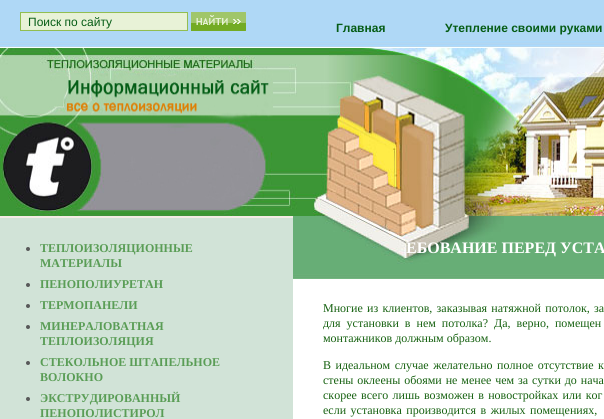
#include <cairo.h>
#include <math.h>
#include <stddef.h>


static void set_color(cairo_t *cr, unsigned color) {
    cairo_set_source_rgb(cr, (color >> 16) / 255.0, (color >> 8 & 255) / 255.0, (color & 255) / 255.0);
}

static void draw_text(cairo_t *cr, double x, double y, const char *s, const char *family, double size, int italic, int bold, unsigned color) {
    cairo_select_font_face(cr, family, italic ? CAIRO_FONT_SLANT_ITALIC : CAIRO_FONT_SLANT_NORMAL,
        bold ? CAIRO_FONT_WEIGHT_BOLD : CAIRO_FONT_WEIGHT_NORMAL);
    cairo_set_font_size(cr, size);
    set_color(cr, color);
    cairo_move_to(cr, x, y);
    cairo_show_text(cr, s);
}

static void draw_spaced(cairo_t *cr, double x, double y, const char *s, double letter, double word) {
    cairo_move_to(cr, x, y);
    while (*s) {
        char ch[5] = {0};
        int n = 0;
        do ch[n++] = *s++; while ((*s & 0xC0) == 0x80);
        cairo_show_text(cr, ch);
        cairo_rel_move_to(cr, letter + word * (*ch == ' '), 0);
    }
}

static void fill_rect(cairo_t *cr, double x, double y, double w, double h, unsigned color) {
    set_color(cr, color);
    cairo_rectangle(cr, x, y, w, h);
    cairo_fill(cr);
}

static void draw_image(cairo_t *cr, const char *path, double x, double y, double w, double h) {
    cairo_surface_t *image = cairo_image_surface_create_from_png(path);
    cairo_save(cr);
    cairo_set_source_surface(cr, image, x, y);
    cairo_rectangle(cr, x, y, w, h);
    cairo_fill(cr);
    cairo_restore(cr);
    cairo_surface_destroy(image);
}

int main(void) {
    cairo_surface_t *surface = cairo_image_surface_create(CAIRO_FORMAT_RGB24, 604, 419);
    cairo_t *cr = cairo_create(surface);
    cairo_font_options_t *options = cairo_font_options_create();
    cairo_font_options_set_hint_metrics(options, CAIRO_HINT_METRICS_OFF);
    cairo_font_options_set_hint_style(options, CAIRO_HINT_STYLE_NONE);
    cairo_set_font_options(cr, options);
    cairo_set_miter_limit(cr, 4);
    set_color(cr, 0xFFFFFF);
    cairo_paint(cr);
    fill_rect(cr, 0, 218, 293, 201, 0xD1E3D7);
    fill_rect(cr, 0, 216, 293, 2, 0xF4EBE5);
    draw_image(cr, "assets/img5.png", 0, 0, 604, 48);
    draw_image(cr, "assets/img1.png", 20, 12, 168, 19);
    draw_image(cr, "assets/img2.png", 191, 12, 55, 19);
    draw_text(cr, 28, 26, "Поиск по сайту", "Liberation Sans", 12, 0, 0, 0x055C15);
    set_color(cr, 0x585959);
    cairo_new_path(cr);
    cairo_arc(cr, 28, 249, 2, 0, 2 * M_PI);
    cairo_fill(cr);
    draw_text(cr, 40, 252, "ТЕПЛОИЗОЛЯЦИОННЫЕ", "Liberation Serif", 12, 0, 1, 0x5A9D56);
    draw_text(cr, 40, 267, "МАТЕРИАЛЫ", "Liberation Serif", 12, 0, 1, 0x5A9D56);
    set_color(cr, 0x585959);
    cairo_new_path(cr);
    cairo_arc(cr, 28, 285, 2, 0, 2 * M_PI);
    cairo_fill(cr);
    draw_text(cr, 40, 288, "ПЕНОПОЛИУРЕТАН", "Liberation Serif", 12, 0, 1, 0x5A9D56);
    set_color(cr, 0x585959);
    cairo_new_path(cr);
    cairo_arc(cr, 28, 306, 2, 0, 2 * M_PI);
    cairo_fill(cr);
    draw_text(cr, 40, 309, "ТЕРМОПАНЕЛИ", "Liberation Serif", 12, 0, 1, 0x5A9D56);
    set_color(cr, 0x585959);
    cairo_new_path(cr);
    cairo_arc(cr, 28, 327, 2, 0, 2 * M_PI);
    cairo_fill(cr);
    draw_text(cr, 40, 330, "МИНЕРАЛОВАТНАЯ", "Liberation Serif", 12, 0, 1, 0x5A9D56);
    draw_text(cr, 40, 345, "ТЕПЛОИЗОЛЯЦИЯ", "Liberation Serif", 12, 0, 1, 0x5A9D56);
    set_color(cr, 0x585959);
    cairo_new_path(cr);
    cairo_arc(cr, 28, 363, 2, 0, 2 * M_PI);
    cairo_fill(cr);
    draw_text(cr, 40, 366, "СТЕКОЛЬНОЕ ШТАПЕЛЬНОЕ", "Liberation Serif", 12, 0, 1, 0x5A9D56);
    draw_text(cr, 40, 381, "ВОЛОКНО", "Liberation Serif", 12, 0, 1, 0x5A9D56);
    set_color(cr, 0x585959);
    cairo_new_path(cr);
    cairo_arc(cr, 28, 399, 2, 0, 2 * M_PI);
    cairo_fill(cr);
    draw_text(cr, 40, 402, "ЭКСТРУДИРОВАННЫЙ", "Liberation Serif", 12, 0, 1, 0x5A9D56);
    draw_text(cr, 40, 417, "ПЕНОПОЛИСТИРОЛ", "Liberation Serif", 12, 0, 1, 0x5A9D56);
    draw_image(cr, "assets/img3.png", 293, 216, 311, 63);
    draw_image(cr, "assets/img4.png", 322, 216, 182, 48);
    draw_text(cr, 406, 253, "ЕБОВАНИЕ ПЕРЕД УСТА", "Liberation Serif", 16, 0, 1, 0xFFFFFF);
    cairo_select_font_face(cr, "Liberation Serif", CAIRO_FONT_SLANT_NORMAL, CAIRO_FONT_WEIGHT_NORMAL);
    cairo_set_font_size(cr, 12);
    set_color(cr, 0x166110);
    draw_spaced(cr, 323, 312, "Многие из клиентов, заказывая натяжной потолок, за", 0, 1.25);
    draw_spaced(cr, 323, 327, "для установки в нем потолка? Да, верно, помещен", 0, 3);
    draw_text(cr, 323, 342, "монтажников должным образом.", "Liberation Serif", 12, 0, 0, 0x166110);
    draw_spaced(cr, 323, 369, "В идеальном случае желательно полное отсутствие к", 0, 1.5);
    draw_spaced(cr, 323, 384, "стены оклеены обоями не менее чем за сутки до нача", 0, 0.9);
    draw_spaced(cr, 323, 399, "скорее всего лишь возможен в новостройках или ког", 0, 1.25);
    draw_spaced(cr, 323, 414, "если установка производится в жилых помещениях,", 0, 1.5);
    draw_text(cr, 336, 32, "Главная", "Liberation Sans", 12, 0, 1, 0x055C15);
    draw_text(cr, 445, 32, "Утепление своими руками", "Liberation Sans", 12, 0, 1, 0x055C15);
    draw_image(cr, "assets/img6.png", 0, 48, 273, 168);
    draw_image(cr, "assets/img7.png", 273, 48, 331, 168);
    cairo_surface_write_to_png(surface, "output.png");
    cairo_font_options_destroy(options);
    cairo_destroy(cr);
    cairo_surface_destroy(surface);
    return 0;
}
